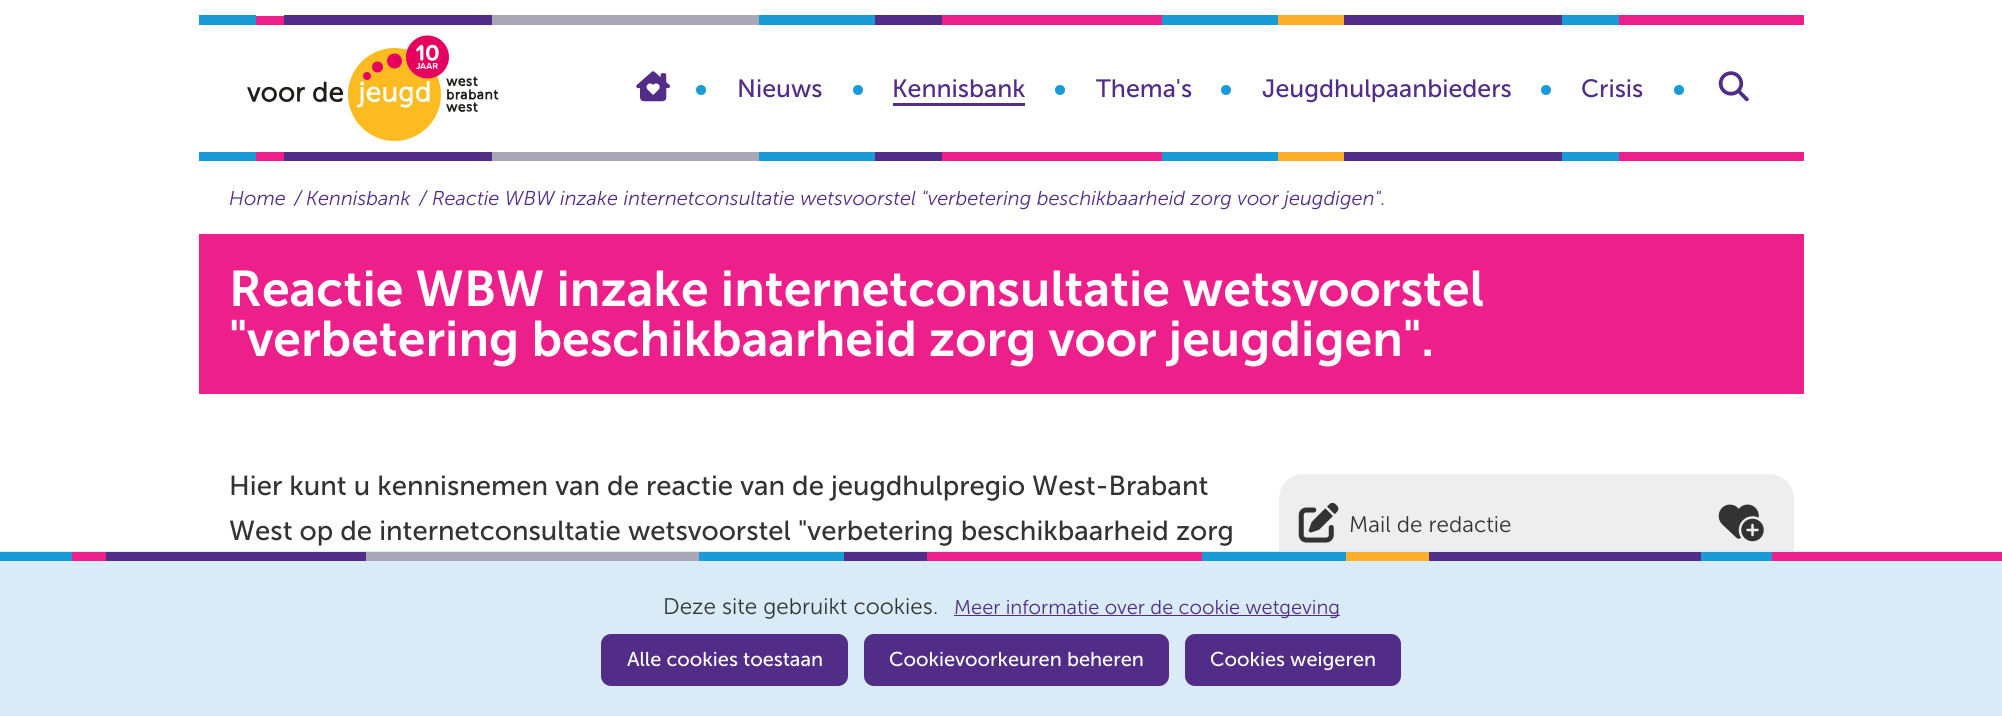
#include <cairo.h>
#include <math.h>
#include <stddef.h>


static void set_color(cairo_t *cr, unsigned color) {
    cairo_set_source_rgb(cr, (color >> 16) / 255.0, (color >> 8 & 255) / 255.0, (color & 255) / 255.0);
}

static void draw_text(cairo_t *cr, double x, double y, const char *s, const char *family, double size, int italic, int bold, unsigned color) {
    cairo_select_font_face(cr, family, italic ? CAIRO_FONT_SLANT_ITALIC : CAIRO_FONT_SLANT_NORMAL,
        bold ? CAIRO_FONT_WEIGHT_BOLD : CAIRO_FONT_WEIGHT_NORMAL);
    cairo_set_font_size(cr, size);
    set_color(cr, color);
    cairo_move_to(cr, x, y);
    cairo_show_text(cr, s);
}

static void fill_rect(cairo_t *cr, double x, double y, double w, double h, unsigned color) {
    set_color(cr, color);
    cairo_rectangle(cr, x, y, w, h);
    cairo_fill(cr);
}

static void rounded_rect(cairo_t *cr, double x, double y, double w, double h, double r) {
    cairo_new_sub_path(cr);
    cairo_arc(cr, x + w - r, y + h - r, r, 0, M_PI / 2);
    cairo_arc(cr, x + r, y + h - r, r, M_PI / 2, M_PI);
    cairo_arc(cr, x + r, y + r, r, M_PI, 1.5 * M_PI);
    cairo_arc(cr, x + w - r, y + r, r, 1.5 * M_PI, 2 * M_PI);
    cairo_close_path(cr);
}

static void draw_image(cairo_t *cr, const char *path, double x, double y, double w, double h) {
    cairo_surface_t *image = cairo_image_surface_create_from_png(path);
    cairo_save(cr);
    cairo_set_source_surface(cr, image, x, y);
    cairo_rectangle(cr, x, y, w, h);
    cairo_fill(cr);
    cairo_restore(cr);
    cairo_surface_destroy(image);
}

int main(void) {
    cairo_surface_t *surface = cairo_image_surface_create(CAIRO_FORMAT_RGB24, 2002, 716);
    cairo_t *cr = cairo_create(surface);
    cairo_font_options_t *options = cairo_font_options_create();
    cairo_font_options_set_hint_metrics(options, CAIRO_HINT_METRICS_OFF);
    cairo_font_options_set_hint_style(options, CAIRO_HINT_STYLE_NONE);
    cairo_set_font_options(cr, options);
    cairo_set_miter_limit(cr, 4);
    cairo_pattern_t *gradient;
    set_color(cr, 0xFFFFFF);
    cairo_paint(cr);
    fill_rect(cr, 199, 15, 57, 10, 0x199BD7);
    fill_rect(cr, 759, 15, 116, 10, 0x199BD7);
    fill_rect(cr, 1162, 15, 116, 10, 0x199BD7);
    fill_rect(cr, 1562, 15, 57, 10, 0x199BD7);
    fill_rect(cr, 256, 16, 28, 9, 0xED208B);
    fill_rect(cr, 942, 15, 220, 10, 0xED208B);
    fill_rect(cr, 1619, 15, 185, 10, 0xED208B);
    fill_rect(cr, 284, 15, 208, 10, 0x522D87);
    fill_rect(cr, 1344, 15, 218, 10, 0x522D87);
    fill_rect(cr, 875, 15, 67, 10, 0x522D87);
    fill_rect(cr, 1278, 15, 66, 10, 0xFBAF2A);
    gradient = cairo_pattern_create_linear(200, 716, 202, 716);
    cairo_pattern_add_color_stop_rgba(gradient, 0, 0.855, 0.863, 0.855, 1);
    cairo_pattern_add_color_stop_rgba(gradient, 0.52, 0.855, 0.863, 0.855, 1);
    cairo_pattern_add_color_stop_rgba(gradient, 0.67, 0.843, 0.851, 0.847, 1);
    cairo_pattern_add_color_stop_rgba(gradient, 0.79, 0.804, 0.808, 0.82, 1);
    cairo_pattern_add_color_stop_rgba(gradient, 0.9, 0.741, 0.741, 0.773, 1);
    cairo_pattern_add_color_stop_rgba(gradient, 1, 0.663, 0.655, 0.714, 1);
    cairo_set_source(cr, gradient);
    cairo_pattern_destroy(gradient);
    cairo_rectangle(cr, 492, 15, 267, 10);
    cairo_fill(cr);
    draw_image(cr, "assets/img1.png", 247, 35, 252, 106);
    draw_image(cr, "assets/img2.png", 636, 71, 34, 31);
    set_color(cr, 0x199BD7);
    cairo_arc(cr, 701, 90, 5, 0, 2 * M_PI);
    cairo_fill(cr);
    draw_text(cr, 737, 97, "Nieuws", "Museo Sans", 25, 0, 0, 0x522D87);
    set_color(cr, 0x199BD7);
    cairo_new_path(cr);
    cairo_arc(cr, 858, 90, 5, 0, 2 * M_PI);
    cairo_fill(cr);
    draw_text(cr, 892, 97, "Kennisbank", "Museo Sans", 25, 0, 0, 0x522D87);
    fill_rect(cr, 893, 103, 132, 3, 0x522D87);
    set_color(cr, 0x199BD7);
    cairo_new_path(cr);
    cairo_arc(cr, 1060, 90, 5, 0, 2 * M_PI);
    cairo_fill(cr);
    draw_text(cr, 1096, 97, "Thema's", "Museo Sans", 25, 0, 0, 0x522D87);
    set_color(cr, 0x199BD7);
    cairo_new_path(cr);
    cairo_arc(cr, 1226, 90, 5, 0, 2 * M_PI);
    cairo_fill(cr);
    draw_text(cr, 1262, 97, "Jeugdhulpaanbieders", "Museo Sans", 25, 0, 0, 0x522D87);
    set_color(cr, 0x199BD7);
    cairo_new_path(cr);
    cairo_arc(cr, 1546, 90, 5, 0, 2 * M_PI);
    cairo_fill(cr);
    draw_text(cr, 1581, 97, "Crisis", "Museo Sans", 25, 0, 0, 0x522D87);
    set_color(cr, 0x199BD7);
    cairo_new_path(cr);
    cairo_arc(cr, 1679, 90, 5, 0, 2 * M_PI);
    cairo_fill(cr);
    draw_image(cr, "assets/img3.png", 1718, 71, 31, 31);
    fill_rect(cr, 199, 152, 57, 9, 0x199BD7);
    fill_rect(cr, 759, 152, 116, 9, 0x199BD7);
    fill_rect(cr, 1162, 152, 116, 9, 0x199BD7);
    fill_rect(cr, 1562, 152, 57, 9, 0x199BD7);
    fill_rect(cr, 256, 152, 28, 9, 0xED208B);
    fill_rect(cr, 942, 152, 220, 9, 0xED208B);
    fill_rect(cr, 1619, 152, 185, 9, 0xED208B);
    fill_rect(cr, 284, 152, 208, 9, 0x522D87);
    fill_rect(cr, 1344, 152, 218, 9, 0x522D87);
    fill_rect(cr, 875, 152, 67, 9, 0x522D87);
    fill_rect(cr, 1278, 152, 66, 9, 0xFBAF2A);
    gradient = cairo_pattern_create_linear(200, 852, 202, 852);
    cairo_pattern_add_color_stop_rgba(gradient, 0, 0.855, 0.863, 0.855, 1);
    cairo_pattern_add_color_stop_rgba(gradient, 0.52, 0.855, 0.863, 0.855, 1);
    cairo_pattern_add_color_stop_rgba(gradient, 0.67, 0.843, 0.851, 0.847, 1);
    cairo_pattern_add_color_stop_rgba(gradient, 0.79, 0.804, 0.808, 0.82, 1);
    cairo_pattern_add_color_stop_rgba(gradient, 0.9, 0.741, 0.741, 0.773, 1);
    cairo_pattern_add_color_stop_rgba(gradient, 1, 0.663, 0.655, 0.714, 1);
    cairo_set_source(cr, gradient);
    cairo_pattern_destroy(gradient);
    cairo_rectangle(cr, 492, 152, 267, 9);
    cairo_fill(cr);
    draw_text(cr, 229, 205, "Home", "Museo Sans Light", 20, 1, 0, 0x522D87);
    draw_text(cr, 294, 205, "/", "Museo Sans Light", 20, 1, 0, 0x522D87);
    draw_text(cr, 306, 205, "Kennisbank", "Museo Sans Light", 20, 1, 0, 0x522D87);
    draw_text(cr, 419, 205, "/", "Museo Sans Light", 20, 1, 0, 0x522D87);
    draw_text(cr, 432, 205, "Reactie WBW inzake internetconsultatie wetsvoorstel \"verbetering beschikbaarheid zorg voor jeugdigen\".", "Museo Sans Light", 20, 1, 0, 0x522D87);
    fill_rect(cr, 199, 234, 1605, 160, 0xED208B);
    draw_text(cr, 229, 306, "Reactie WBW inzake internetconsultatie wetsvoorstel", "Museo Sans SemiBold", 50, 0, 0, 0xFFFFFF);
    draw_text(cr, 229, 356, "\"verbetering beschikbaarheid zorg voor jeugdigen\".", "Museo Sans SemiBold", 50, 0, 0, 0xFFFFFF);
    draw_text(cr, 229, 495, "Hier kunt u kennisnemen van de reactie van de jeugdhulpregio West-Brabant", "Museo Sans", 27.5, 0, 0, 0x333333);
    draw_text(cr, 229, 540, "West op de internetconsultatie wetsvoorstel \"verbetering beschikbaarheid zorg", "Museo Sans", 27.5, 0, 0, 0x333333);
    set_color(cr, 0xEEEEEE);
    rounded_rect(cr, 1279, 474, 515, 139, 25);
    cairo_fill(cr);
    draw_image(cr, "assets/img4.png", 1298, 502, 41, 41);
    draw_text(cr, 1349, 532, "Mail de redactie", "Museo Sans Light", 22.5, 0, 0, 0x333333);
    draw_image(cr, "assets/img5.png", 1718, 504, 46, 38);
    fill_rect(cr, 0, 551, 2002, 165, 0xD8EBF7);
    fill_rect(cr, 0, 552, 72, 9, 0x199BD7);
    fill_rect(cr, 699, 552, 145, 9, 0x199BD7);
    fill_rect(cr, 1202, 552, 144, 9, 0x199BD7);
    fill_rect(cr, 1701, 552, 71, 9, 0x199BD7);
    fill_rect(cr, 72, 552, 34, 9, 0xED208B);
    fill_rect(cr, 927, 552, 275, 9, 0xED208B);
    fill_rect(cr, 1772, 552, 230, 9, 0xED208B);
    fill_rect(cr, 106, 552, 260, 9, 0x522D87);
    fill_rect(cr, 1429, 552, 272, 9, 0x522D87);
    fill_rect(cr, 844, 552, 83, 9, 0x522D87);
    fill_rect(cr, 1346, 552, 83, 9, 0xFBAF2A);
    gradient = cairo_pattern_create_linear(1.8, 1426, 3.5, 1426);
    cairo_pattern_add_color_stop_rgba(gradient, 0, 0.855, 0.863, 0.855, 1);
    cairo_pattern_add_color_stop_rgba(gradient, 0.52, 0.855, 0.863, 0.855, 1);
    cairo_pattern_add_color_stop_rgba(gradient, 0.67, 0.843, 0.851, 0.847, 1);
    cairo_pattern_add_color_stop_rgba(gradient, 0.79, 0.804, 0.808, 0.82, 1);
    cairo_pattern_add_color_stop_rgba(gradient, 0.9, 0.741, 0.741, 0.773, 1);
    cairo_pattern_add_color_stop_rgba(gradient, 1, 0.663, 0.655, 0.714, 1);
    cairo_set_source(cr, gradient);
    cairo_pattern_destroy(gradient);
    cairo_rectangle(cr, 366, 552, 333, 9);
    cairo_fill(cr);
    draw_text(cr, 663, 614, "Deze site gebruikt cookies.", "Museo Sans Light", 22.5, 0, 0, 0x333333);
    fill_rect(cr, 954, 615, 386, 1, 0x522D87);
    draw_text(cr, 954, 614, "Meer informatie over de cookie wetgeving", "Museo Sans Light", 20, 0, 0, 0x522D87);
    rounded_rect(cr, 601, 634, 247, 52, 10);
    cairo_fill(cr);
    draw_text(cr, 627, 666, "Alle cookies toestaan", "Museo Sans", 20, 0, 0, 0xFFFFFF);
    set_color(cr, 0x522D87);
    rounded_rect(cr, 864, 634, 305, 52, 10);
    cairo_fill(cr);
    draw_text(cr, 889, 666, "Cookievoorkeuren beheren", "Museo Sans", 20, 0, 0, 0xFFFFFF);
    set_color(cr, 0x522D87);
    rounded_rect(cr, 1185, 634, 216, 52, 10);
    cairo_fill(cr);
    draw_text(cr, 1210, 666, "Cookies weigeren", "Museo Sans", 20, 0, 0, 0xFFFFFF);
    cairo_surface_write_to_png(surface, "output.png");
    cairo_font_options_destroy(options);
    cairo_destroy(cr);
    cairo_surface_destroy(surface);
    return 0;
}
